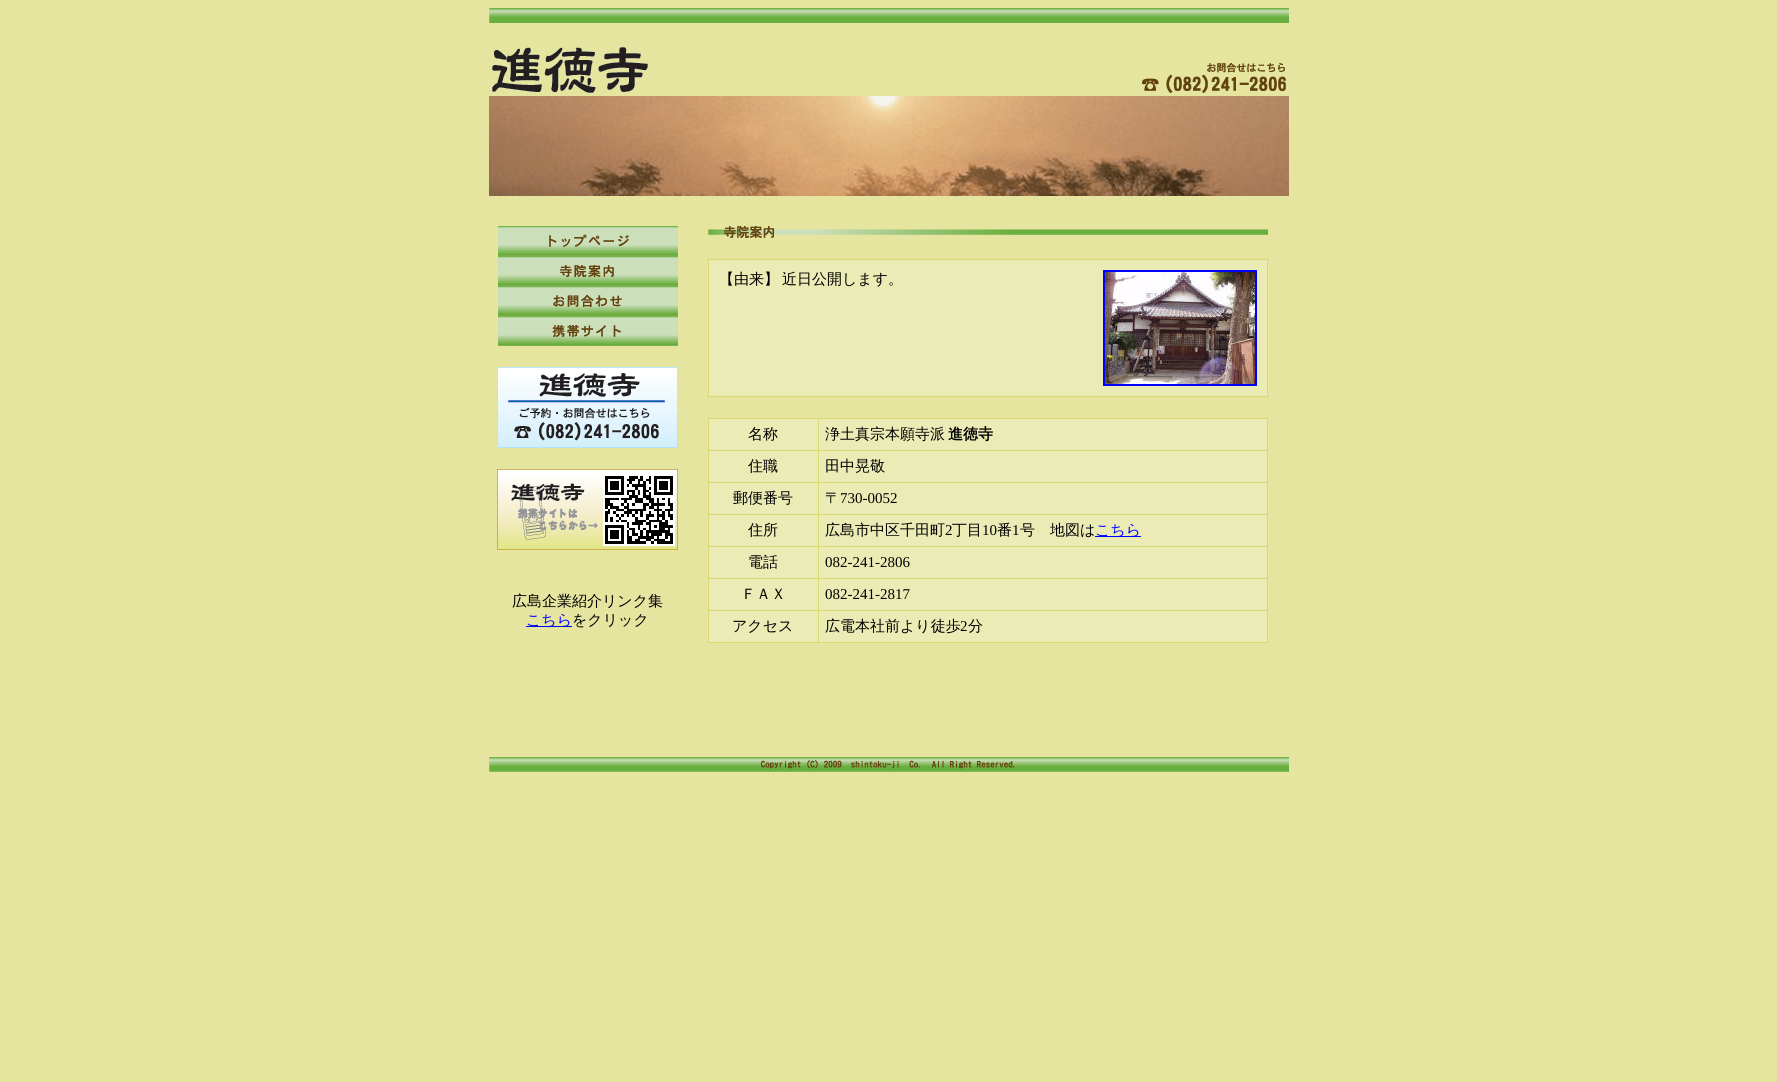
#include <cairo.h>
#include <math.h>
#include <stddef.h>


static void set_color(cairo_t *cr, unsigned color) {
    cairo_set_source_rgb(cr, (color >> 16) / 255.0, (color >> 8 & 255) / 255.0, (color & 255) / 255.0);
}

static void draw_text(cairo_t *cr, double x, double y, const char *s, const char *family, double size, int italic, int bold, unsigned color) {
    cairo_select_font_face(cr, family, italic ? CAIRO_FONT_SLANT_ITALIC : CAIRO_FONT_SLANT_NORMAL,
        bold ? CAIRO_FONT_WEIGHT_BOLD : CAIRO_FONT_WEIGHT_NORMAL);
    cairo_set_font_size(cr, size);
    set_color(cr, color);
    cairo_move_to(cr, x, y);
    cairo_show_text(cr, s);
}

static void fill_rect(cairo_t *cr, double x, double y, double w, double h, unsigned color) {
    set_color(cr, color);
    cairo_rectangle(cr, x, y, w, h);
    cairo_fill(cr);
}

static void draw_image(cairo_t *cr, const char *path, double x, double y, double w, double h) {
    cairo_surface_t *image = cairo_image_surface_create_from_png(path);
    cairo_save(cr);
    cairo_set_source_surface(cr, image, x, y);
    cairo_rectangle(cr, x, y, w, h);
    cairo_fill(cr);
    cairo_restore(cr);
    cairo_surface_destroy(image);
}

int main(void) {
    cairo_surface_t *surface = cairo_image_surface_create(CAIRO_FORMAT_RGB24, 1777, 1082);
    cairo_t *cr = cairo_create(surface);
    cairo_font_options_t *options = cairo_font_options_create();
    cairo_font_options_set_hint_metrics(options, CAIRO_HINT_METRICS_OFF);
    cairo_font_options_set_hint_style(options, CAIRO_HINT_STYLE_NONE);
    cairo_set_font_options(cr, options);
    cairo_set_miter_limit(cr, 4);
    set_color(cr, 0xE5E59F);
    cairo_paint(cr);
    draw_image(cr, "assets/img1.png", 489, 8, 800, 15);
    draw_image(cr, "assets/img2.png", 492, 47, 156, 46);
    draw_image(cr, "assets/img3.png", 1142, 63, 144, 30);
    draw_image(cr, "assets/img4.png", 489, 96, 800, 100);
    draw_image(cr, "assets/img5.png", 498, 226, 180, 30);
    draw_image(cr, "assets/img6.png", 498, 256, 180, 30);
    draw_image(cr, "assets/img7.png", 498, 286, 180, 30);
    draw_image(cr, "assets/img8.png", 498, 316, 180, 30);
    draw_image(cr, "assets/img9.png", 497, 367, 181, 81);
    draw_image(cr, "assets/img10.png", 497, 469, 181, 81);
    draw_image(cr, "assets/img11.png", 603, 476, 72, 70);
    draw_text(cr, 512, 606, "広島企業紹介リンク集", "WenQuanYi Zen Hei Medium", 15, 0, 0, 0x000000);
    fill_rect(cr, 526, 626, 46, 1, 0x0000FF);
    draw_text(cr, 526, 625, "こちら", "WenQuanYi Zen Hei Medium", 15, 0, 0, 0x0000FF);
    draw_text(cr, 572, 625, "をクリック", "WenQuanYi Zen Hei Medium", 15, 0, 0, 0x000000);
    draw_image(cr, "assets/img12.png", 708, 226, 560, 12);
    fill_rect(cr, 709, 260, 558, 136, 0xEBEBB6);
    fill_rect(cr, 708, 259, 560, 1, 0xD9D971);
    fill_rect(cr, 1267, 259, 1, 138, 0xD9D971);
    fill_rect(cr, 708, 396, 560, 1, 0xD9D971);
    fill_rect(cr, 708, 259, 1, 138, 0xD9D971);
    draw_text(cr, 719, 284, "【由来】", "WenQuanYi Zen Hei Medium", 15, 0, 0, 0x000000);
    draw_text(cr, 782, 284, "近日公開します。", "WenQuanYi Zen Hei Medium", 15, 0, 0, 0x000000);
    cairo_rectangle(cr, 1104, 271, 152, 114);
    set_color(cr, 0x0000FF);
    cairo_stroke(cr);
    draw_image(cr, "assets/img13.png", 1105, 272, 150, 112);
    fill_rect(cr, 709, 419, 558, 223, 0xEBEBB6);
    fill_rect(cr, 708, 418, 560, 1, 0xD9D971);
    fill_rect(cr, 1267, 418, 1, 225, 0xD9D971);
    fill_rect(cr, 708, 642, 560, 1, 0xD9D971);
    fill_rect(cr, 708, 418, 1, 225, 0xD9D971);
    draw_text(cr, 748, 439, "名称", "WenQuanYi Zen Hei Medium", 15, 0, 0, 0x000000);
    fill_rect(cr, 818, 450, 450, 1, 0xD9D971);
    fill_rect(cr, 818, 482, 450, 1, 0xD9D971);
    fill_rect(cr, 818, 514, 450, 1, 0xD9D971);
    fill_rect(cr, 818, 546, 450, 1, 0xD9D971);
    fill_rect(cr, 818, 578, 450, 1, 0xD9D971);
    fill_rect(cr, 818, 610, 450, 1, 0xD9D971);
    fill_rect(cr, 818, 610, 1, 33, 0xD9D971);
    fill_rect(cr, 708, 610, 111, 1, 0xD9D971);
    fill_rect(cr, 818, 578, 1, 33, 0xD9D971);
    fill_rect(cr, 708, 578, 111, 1, 0xD9D971);
    fill_rect(cr, 818, 546, 1, 33, 0xD9D971);
    fill_rect(cr, 708, 546, 111, 1, 0xD9D971);
    fill_rect(cr, 818, 514, 1, 33, 0xD9D971);
    fill_rect(cr, 708, 514, 111, 1, 0xD9D971);
    fill_rect(cr, 818, 482, 1, 33, 0xD9D971);
    fill_rect(cr, 708, 482, 111, 1, 0xD9D971);
    fill_rect(cr, 818, 450, 1, 33, 0xD9D971);
    fill_rect(cr, 708, 450, 111, 1, 0xD9D971);
    fill_rect(cr, 818, 418, 1, 33, 0xD9D971);
    draw_text(cr, 825, 439, "浄土真宗本願寺派", "WenQuanYi Zen Hei Medium", 15, 0, 0, 0x000000);
    draw_text(cr, 948, 439, "進徳寺", "WenQuanYi Zen Hei", 15, 0, 1, 0x000000);
    draw_text(cr, 748, 471, "住職", "WenQuanYi Zen Hei Medium", 15, 0, 0, 0x000000);
    draw_text(cr, 825, 471, "田中晃敬", "WenQuanYi Zen Hei Medium", 15, 0, 0, 0x000000);
    draw_text(cr, 733, 503, "郵便番号", "WenQuanYi Zen Hei Medium", 15, 0, 0, 0x000000);
    draw_text(cr, 825, 503, "〒", "WenQuanYi Zen Hei Medium", 15, 0, 0, 0x000000);
    draw_text(cr, 840, 503, "730-0052", "Liberation Serif", 15, 0, 0, 0x000000);
    draw_text(cr, 748, 535, "住所", "WenQuanYi Zen Hei Medium", 15, 0, 0, 0x000000);
    draw_text(cr, 825, 535, "広島市中区千田町", "WenQuanYi Zen Hei Medium", 15, 0, 0, 0x000000);
    draw_text(cr, 945, 535, "2", "Liberation Serif", 15, 0, 0, 0x000000);
    draw_text(cr, 952, 535, "丁目", "WenQuanYi Zen Hei Medium", 15, 0, 0, 0x000000);
    draw_text(cr, 982, 535, "10", "Liberation Serif", 15, 0, 0, 0x000000);
    draw_text(cr, 997, 535, "番", "WenQuanYi Zen Hei Medium", 15, 0, 0, 0x000000);
    draw_text(cr, 1012, 535, "1", "Liberation Serif", 15, 0, 0, 0x000000);
    draw_text(cr, 1020, 535, "号　地図は", "WenQuanYi Zen Hei Medium", 15, 0, 0, 0x000000);
    fill_rect(cr, 1095, 536, 46, 1, 0x0000FF);
    draw_text(cr, 1095, 535, "こちら", "WenQuanYi Zen Hei Medium", 15, 0, 0, 0x0000FF);
    draw_text(cr, 748, 567, "電話", "WenQuanYi Zen Hei Medium", 15, 0, 0, 0x000000);
    draw_text(cr, 825, 567, "082-241-2806", "Liberation Serif", 15, 0, 0, 0x000000);
    draw_text(cr, 741, 599, "ＦＡＸ", "WenQuanYi Zen Hei Medium", 15, 0, 0, 0x000000);
    draw_text(cr, 825, 599, "082-241-2817", "Liberation Serif", 15, 0, 0, 0x000000);
    draw_text(cr, 732, 631, "アクセス", "WenQuanYi Zen Hei Medium", 15, 0, 0, 0x000000);
    draw_text(cr, 825, 631, "広電本社前より徒歩", "WenQuanYi Zen Hei Medium", 15, 0, 0, 0x000000);
    draw_text(cr, 960, 631, "2", "Liberation Serif", 15, 0, 0, 0x000000);
    draw_text(cr, 968, 631, "分", "WenQuanYi Zen Hei Medium", 15, 0, 0, 0x000000);
    draw_image(cr, "assets/img14.png", 489, 757, 800, 15);
    cairo_surface_write_to_png(surface, "output.png");
    cairo_font_options_destroy(options);
    cairo_destroy(cr);
    cairo_surface_destroy(surface);
    return 0;
}
